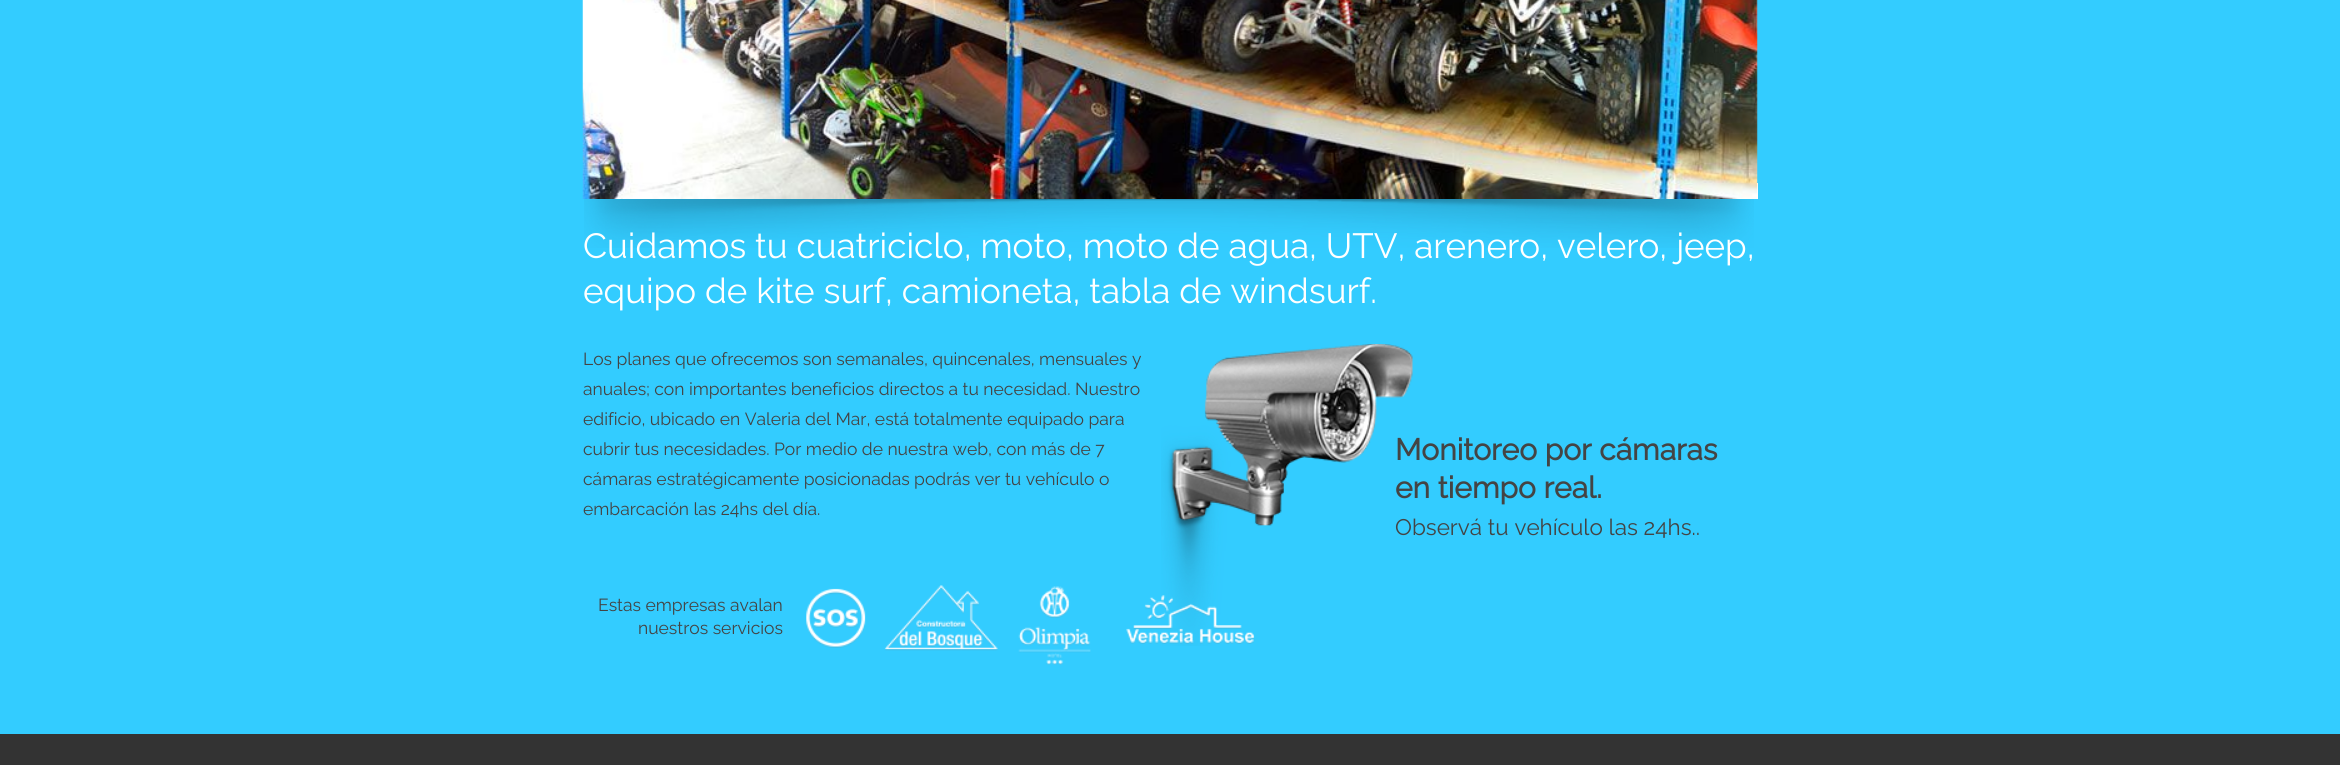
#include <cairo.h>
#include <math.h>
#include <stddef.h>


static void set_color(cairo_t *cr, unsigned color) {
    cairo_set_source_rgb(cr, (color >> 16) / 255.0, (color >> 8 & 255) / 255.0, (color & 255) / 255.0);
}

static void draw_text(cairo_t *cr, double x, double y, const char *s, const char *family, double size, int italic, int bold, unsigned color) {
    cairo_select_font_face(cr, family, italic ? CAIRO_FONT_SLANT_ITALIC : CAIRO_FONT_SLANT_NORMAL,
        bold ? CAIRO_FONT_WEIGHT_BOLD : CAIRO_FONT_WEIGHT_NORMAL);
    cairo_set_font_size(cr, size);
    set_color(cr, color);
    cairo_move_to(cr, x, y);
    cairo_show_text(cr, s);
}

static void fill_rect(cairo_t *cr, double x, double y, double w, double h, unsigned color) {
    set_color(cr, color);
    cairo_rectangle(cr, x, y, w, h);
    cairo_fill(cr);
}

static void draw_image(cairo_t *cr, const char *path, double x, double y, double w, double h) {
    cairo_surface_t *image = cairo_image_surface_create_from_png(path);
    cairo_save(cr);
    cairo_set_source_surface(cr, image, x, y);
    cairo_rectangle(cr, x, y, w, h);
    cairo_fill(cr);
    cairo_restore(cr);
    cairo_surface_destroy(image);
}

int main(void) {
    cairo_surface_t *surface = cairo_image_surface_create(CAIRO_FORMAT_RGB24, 2340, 765);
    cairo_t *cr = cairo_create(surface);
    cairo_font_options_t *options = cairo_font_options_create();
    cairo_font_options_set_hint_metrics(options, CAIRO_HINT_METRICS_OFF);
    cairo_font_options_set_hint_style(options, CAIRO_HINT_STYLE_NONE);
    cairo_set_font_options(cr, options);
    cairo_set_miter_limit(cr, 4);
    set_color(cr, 0x33CCFF);
    cairo_paint(cr);
    fill_rect(cr, 1757, 183, 1, 16, 0xFFFFFF);
    draw_image(cr, "assets/img1.png", 582, 0, 1176, 199);
    draw_image(cr, "assets/img2.png", 584, 199, 1170, 49);
    draw_text(cr, 583, 258, "Cuidamos tu cuatriciclo, moto, moto de agua, UTV, arenero, velero, jeep,", "Raleway Thin", 35, 0, 0, 0xFFFFFF);
    draw_text(cr, 583, 303, "equipo de kite surf, camioneta, tabla de windsurf.", "Raleway Thin", 35, 0, 0, 0xFFFFFF);
    draw_text(cr, 583, 365, "Los planes que ofrecemos son semanales, quincenales, mensuales y", "Raleway Thin", 17.5, 0, 0, 0x444444);
    draw_text(cr, 583, 395, "anuales; con importantes beneficios directos a tu necesidad. Nuestro", "Raleway Thin", 17.5, 0, 0, 0x444444);
    draw_text(cr, 583, 425, "edificio, ubicado en Valeria del Mar, está totalmente equipado para", "Raleway Thin", 17.5, 0, 0, 0x444444);
    draw_text(cr, 583, 455, "cubrir tus necesidades. Por medio de nuestra web, con más de 7", "Raleway Thin", 17.5, 0, 0, 0x444444);
    draw_text(cr, 583, 485, "cámaras estratégicamente posicionadas podrás ver tu vehículo o", "Raleway Thin", 17.5, 0, 0, 0x444444);
    draw_text(cr, 583, 515, "embarcación las 24hs del día.", "Raleway Thin", 17.5, 0, 0, 0x444444);
    draw_image(cr, "assets/img3.png", 1161, 344, 252, 302);
    draw_text(cr, 1395, 460, "Monitoreo por cámaras", "Raleway", 30, 0, 1, 0x444444);
    draw_text(cr, 1395, 498, "en tiempo real.", "Raleway", 30, 0, 1, 0x444444);
    draw_text(cr, 1395, 535, "Observá tu vehículo las 24hs..", "Raleway Thin", 22.5, 0, 0, 0x444444);
    draw_text(cr, 598, 611, "Estas empresas avalan", "Raleway Thin", 17.5, 0, 0, 0x444444);
    draw_text(cr, 638, 634, "nuestros servicios", "Raleway Thin", 17.5, 0, 0, 0x444444);
    draw_image(cr, "assets/img4.png", 806, 588, 60, 60);
    draw_image(cr, "assets/img5.png", 884, 585, 114, 66);
    draw_image(cr, "assets/img6.png", 1018, 586, 73, 79);
    draw_image(cr, "assets/img7.png", 1126, 595, 129, 49);
    fill_rect(cr, 0, 734, 2340, 31, 0x333333);
    cairo_surface_write_to_png(surface, "output.png");
    cairo_font_options_destroy(options);
    cairo_destroy(cr);
    cairo_surface_destroy(surface);
    return 0;
}
